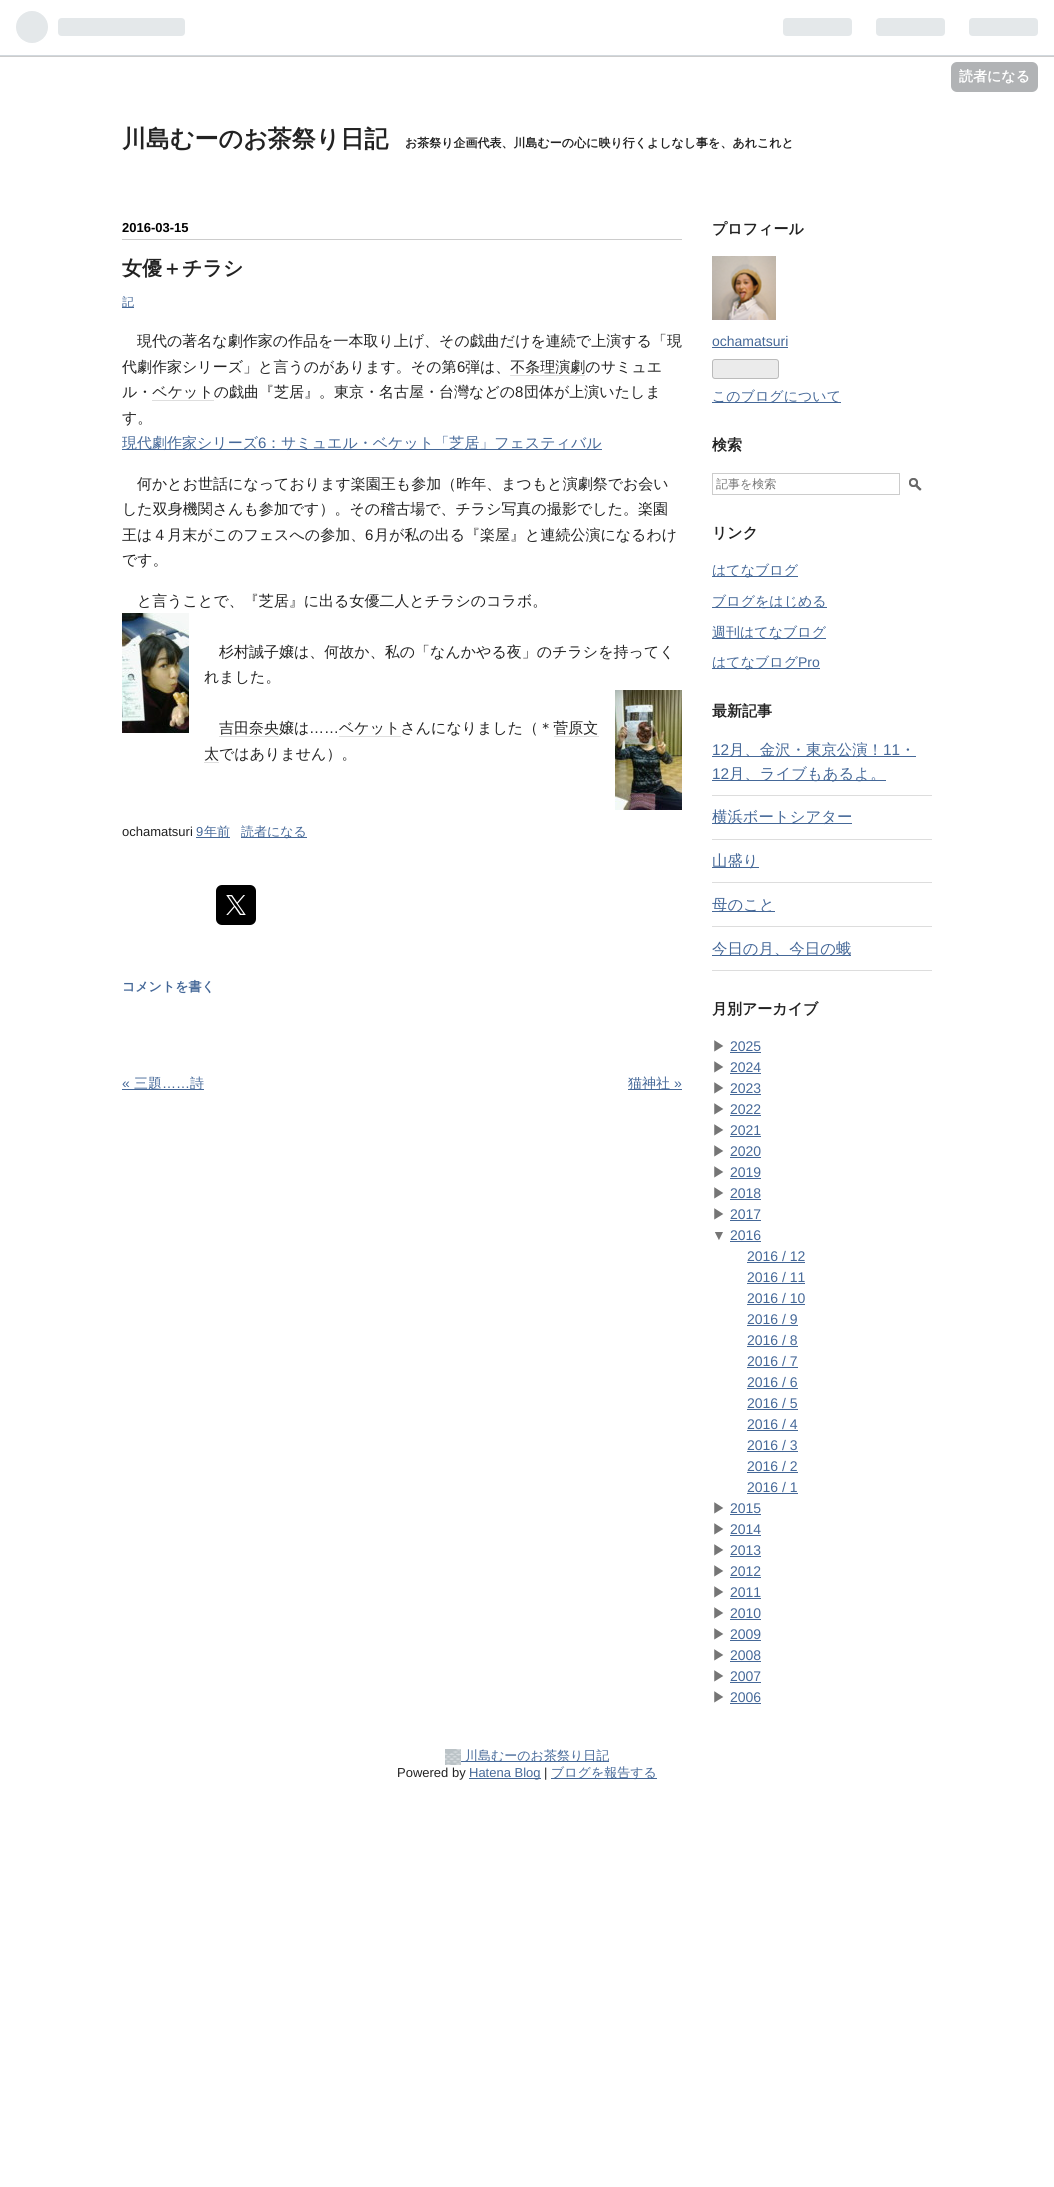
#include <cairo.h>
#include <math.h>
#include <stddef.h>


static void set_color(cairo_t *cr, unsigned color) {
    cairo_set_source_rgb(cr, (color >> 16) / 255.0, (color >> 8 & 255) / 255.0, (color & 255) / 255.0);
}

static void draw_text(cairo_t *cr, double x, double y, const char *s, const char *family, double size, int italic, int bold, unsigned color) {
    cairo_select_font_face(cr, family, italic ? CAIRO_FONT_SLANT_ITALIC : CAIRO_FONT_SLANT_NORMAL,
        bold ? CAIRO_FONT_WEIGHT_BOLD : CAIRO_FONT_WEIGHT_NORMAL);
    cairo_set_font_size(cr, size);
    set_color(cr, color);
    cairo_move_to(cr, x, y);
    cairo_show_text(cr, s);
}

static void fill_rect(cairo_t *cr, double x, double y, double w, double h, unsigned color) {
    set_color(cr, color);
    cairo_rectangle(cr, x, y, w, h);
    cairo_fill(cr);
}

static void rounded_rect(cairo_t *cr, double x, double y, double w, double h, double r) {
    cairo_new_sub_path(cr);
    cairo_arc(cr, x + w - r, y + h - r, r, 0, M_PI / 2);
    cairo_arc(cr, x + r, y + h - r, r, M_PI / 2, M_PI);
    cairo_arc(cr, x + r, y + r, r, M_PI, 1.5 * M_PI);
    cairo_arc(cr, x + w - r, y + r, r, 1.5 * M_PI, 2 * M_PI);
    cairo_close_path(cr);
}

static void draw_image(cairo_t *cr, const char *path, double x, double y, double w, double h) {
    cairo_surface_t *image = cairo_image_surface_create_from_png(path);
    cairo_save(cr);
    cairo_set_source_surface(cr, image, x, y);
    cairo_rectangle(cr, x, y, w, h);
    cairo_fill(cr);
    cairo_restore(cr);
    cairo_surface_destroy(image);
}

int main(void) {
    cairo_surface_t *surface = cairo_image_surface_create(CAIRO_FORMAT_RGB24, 1054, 2187);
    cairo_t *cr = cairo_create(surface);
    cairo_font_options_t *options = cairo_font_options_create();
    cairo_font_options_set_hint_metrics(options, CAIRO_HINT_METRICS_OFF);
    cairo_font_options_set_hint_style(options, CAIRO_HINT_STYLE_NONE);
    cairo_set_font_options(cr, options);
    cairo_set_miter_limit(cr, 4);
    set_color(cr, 0xFFFFFF);
    cairo_paint(cr);
    fill_rect(cr, 0, 55, 1054, 1, 0xD2D8DD);
    fill_rect(cr, 0, 56, 1054, 1, 0xCCCCCC);
    draw_image(cr, "assets/img1.png", 16, 11, 169, 32);
    draw_image(cr, "assets/img2.png", 783, 18, 255, 18);
    set_color(cr, 0xB1B3B5);
    rounded_rect(cr, 951, 62, 87, 30, 6);
    cairo_fill(cr);
    draw_text(cr, 959, 81, "読者になる", "WenQuanYi Zen Hei", 14, 0, 1, 0xFFFFFF);
    draw_text(cr, 122, 147, "川島むーのお茶祭り日記", "WenQuanYi Zen Hei", 24, 0, 1, 0x222222);
    draw_text(cr, 405, 147, "お茶祭り企画代表、川島むーの心に映り行くよしなし事を、あれこれと", "WenQuanYi Zen Hei", 12, 0, 1, 0x222222);
    fill_rect(cr, 122, 239, 560, 1, 0xCCCCCC);
    draw_text(cr, 122, 232, "2016-03-15", "Liberation Sans", 13, 0, 1, 0x000000);
    draw_text(cr, 122, 275, "女優＋チラシ", "WenQuanYi Zen Hei", 20, 0, 1, 0x222222);
    fill_rect(cr, 122, 307, 12, 1, 0x456898);
    draw_text(cr, 122, 306, "記", "WenQuanYi Zen Hei Medium", 12, 0, 0, 0x456898);
    draw_text(cr, 137, 346, "現代の著名な劇作家の作品を一本取り上げ、その戯曲だけを連続で上演する「現", "WenQuanYi Zen Hei Medium", 15, 0, 0, 0x222222);
    draw_text(cr, 122, 372, "代劇作家シリーズ」と言うのがあります。その第", "WenQuanYi Zen Hei Medium", 15, 0, 0, 0x222222);
    draw_text(cr, 457, 372, "6", "Liberation Sans", 15, 0, 0, 0x222222);
    draw_text(cr, 465, 372, "弾は、不条理演劇のサミュエ", "WenQuanYi Zen Hei Medium", 15, 0, 0, 0x222222);
    fill_rect(cr, 510, 375, 75, 1, 0xDEDEDE);
    draw_text(cr, 122, 397, "ル・ベケットの戯曲『芝居』。東京・名古屋・台灣などの", "WenQuanYi Zen Hei Medium", 15, 0, 0, 0x222222);
    draw_text(cr, 515, 397, "8", "Liberation Sans", 15, 0, 0, 0x222222);
    draw_text(cr, 524, 397, "団体が上演いたしま", "WenQuanYi Zen Hei Medium", 15, 0, 0, 0x222222);
    fill_rect(cr, 152, 400, 62, 1, 0xDEDEDE);
    draw_text(cr, 122, 423, "す。", "WenQuanYi Zen Hei Medium", 15, 0, 0, 0x222222);
    fill_rect(cr, 122, 449, 480, 1, 0x456898);
    draw_text(cr, 122, 448, "現代劇作家シリーズ", "WenQuanYi Zen Hei Medium", 15, 0, 0, 0x456898);
    draw_text(cr, 258, 448, "6", "Liberation Sans", 15, 0, 0, 0x456898);
    draw_text(cr, 266, 448, "：サミュエル・ベケット「芝居」フェスティバル", "WenQuanYi Zen Hei Medium", 15, 0, 0, 0x456898);
    draw_text(cr, 137, 489, "何かとお世話になっております楽園王も参加（昨年、まつもと演劇祭でお会い", "WenQuanYi Zen Hei Medium", 15, 0, 0, 0x222222);
    draw_text(cr, 122, 514, "した双身機関さんも参加です）。その稽古場で、チラシ写真の撮影でした。楽園", "WenQuanYi Zen Hei Medium", 15, 0, 0, 0x222222);
    draw_text(cr, 122, 540, "王は４月末がこのフェスへの参加、", "WenQuanYi Zen Hei Medium", 15, 0, 0, 0x222222);
    draw_text(cr, 365, 540, "6", "Liberation Sans", 15, 0, 0, 0x222222);
    draw_text(cr, 374, 540, "月が私の出る『楽屋』と連続公演になるわけ", "WenQuanYi Zen Hei Medium", 15, 0, 0, 0x222222);
    draw_text(cr, 122, 565, "です。", "WenQuanYi Zen Hei Medium", 15, 0, 0, 0x222222);
    draw_text(cr, 137, 606, "と言うことで、『芝居』に出る女優二人とチラシのコラボ。", "WenQuanYi Zen Hei Medium", 15, 0, 0, 0x222222);
    draw_image(cr, "assets/img3.png", 122, 613, 67, 120);
    draw_text(cr, 219, 657, "杉村誠子嬢は、何故か、私の「なんかやる夜」のチラシを持ってく", "WenQuanYi Zen Hei Medium", 15, 0, 0, 0x222222);
    draw_text(cr, 204, 682, "れました。", "WenQuanYi Zen Hei Medium", 15, 0, 0, 0x222222);
    draw_text(cr, 219, 733, "吉田奈央嬢は", "WenQuanYi Zen Hei Medium", 15, 0, 0, 0x222222);
    fill_rect(cr, 219, 736, 60, 1, 0xDEDEDE);
    draw_text(cr, 309, 733, "……", "Liberation Sans", 15, 0, 0, 0x222222);
    draw_text(cr, 339, 733, "ベケットさんになりました（＊菅原文", "WenQuanYi Zen Hei Medium", 15, 0, 0, 0x222222);
    fill_rect(cr, 339, 736, 62, 1, 0xDEDEDE);
    draw_image(cr, "assets/img4.png", 615, 690, 67, 120);
    draw_text(cr, 204, 759, "太ではありません）。", "WenQuanYi Zen Hei Medium", 15, 0, 0, 0x222222);
    fill_rect(cr, 554, 736, 45, 1, 0xDEDEDE);
    fill_rect(cr, 204, 762, 15, 1, 0xDEDEDE);
    draw_text(cr, 122, 836, "ochamatsuri", "Liberation Sans", 13, 0, 0, 0x222222);
    draw_text(cr, 196, 836, "9", "Liberation Sans", 13, 0, 0, 0x456898);
    fill_rect(cr, 196, 837, 34, 1, 0x456898);
    draw_text(cr, 204, 836, "年前", "WenQuanYi Zen Hei Medium", 13, 0, 0, 0x456898);
    fill_rect(cr, 241, 837, 66, 1, 0x456898);
    draw_text(cr, 241, 836, "読者になる", "WenQuanYi Zen Hei Medium", 13, 0, 0, 0x456898);
    set_color(cr, 0x000000);
    rounded_rect(cr, 216, 885, 40, 40, 6);
    cairo_fill(cr);
    draw_image(cr, "assets/img5.png", 226, 895, 20, 20);
    draw_text(cr, 122, 991, "コメントを書く", "WenQuanYi Zen Hei", 13, 0, 1, 0x456898);
    draw_text(cr, 122, 1088, "«", "Liberation Sans", 14, 0, 0, 0x456898);
    fill_rect(cr, 122, 1089, 82, 1, 0x456898);
    draw_text(cr, 134, 1088, "三題", "WenQuanYi Zen Hei Medium", 14, 0, 0, 0x456898);
    draw_text(cr, 162, 1088, "……", "Liberation Sans", 14, 0, 0, 0x456898);
    draw_text(cr, 190, 1088, "詩", "WenQuanYi Zen Hei Medium", 14, 0, 0, 0x456898);
    fill_rect(cr, 628, 1089, 54, 1, 0x456898);
    draw_text(cr, 628, 1088, "猫神社", "WenQuanYi Zen Hei Medium", 14, 0, 0, 0x456898);
    draw_text(cr, 674, 1088, "»", "Liberation Sans", 14, 0, 0, 0x456898);
    draw_text(cr, 712, 234, "プロフィール", "WenQuanYi Zen Hei", 15, 0, 1, 0x222222);
    draw_image(cr, "assets/img6.png", 712, 256, 64, 64);
    draw_text(cr, 712, 346, "ochamatsuri", "Liberation Sans", 14, 0, 0, 0x456898);
    fill_rect(cr, 712, 347, 76, 1, 0x456898);
    set_color(cr, 0xEBEBEB);
    rounded_rect(cr, 712.5, 359.5, 66, 19, 2.5);
    cairo_fill_preserve(cr);
    set_color(cr, 0xBBBBBB);
    cairo_set_line_width(cr, 1);
    cairo_stroke(cr);
    fill_rect(cr, 712, 402, 129, 1, 0x456898);
    draw_text(cr, 712, 401, "このブログについて", "WenQuanYi Zen Hei Medium", 14, 0, 0, 0x456898);
    draw_text(cr, 712, 450, "検索", "WenQuanYi Zen Hei", 15, 0, 1, 0x222222);
    cairo_rectangle(cr, 712.5, 473.5, 187, 21);
    set_color(cr, 0xCCCCCC);
    cairo_stroke(cr);
    draw_text(cr, 716, 488, "記事を検索", "WenQuanYi Zen Hei Medium", 12, 0, 0, 0x757575);
    draw_image(cr, "assets/img7.png", 909, 478, 13, 13);
    draw_text(cr, 712, 538, "リンク", "WenQuanYi Zen Hei", 15, 0, 1, 0x222222);
    fill_rect(cr, 712, 576, 86, 1, 0x456898);
    draw_text(cr, 712, 575, "はてなブログ", "WenQuanYi Zen Hei Medium", 14, 0, 0, 0x456898);
    fill_rect(cr, 712, 607, 115, 1, 0x456898);
    draw_text(cr, 712, 606, "ブログをはじめる", "WenQuanYi Zen Hei Medium", 14, 0, 0, 0x456898);
    fill_rect(cr, 712, 638, 114, 1, 0x456898);
    draw_text(cr, 712, 637, "週刊はてなブログ", "WenQuanYi Zen Hei Medium", 14, 0, 0, 0x456898);
    fill_rect(cr, 712, 668, 108, 1, 0x456898);
    draw_text(cr, 712, 667, "はてなブログ", "WenQuanYi Zen Hei Medium", 14, 0, 0, 0x456898);
    draw_text(cr, 798, 667, "Pro", "Liberation Sans", 14, 0, 0, 0x456898);
    draw_text(cr, 712, 716, "最新記事", "WenQuanYi Zen Hei", 15, 0, 1, 0x222222);
    fill_rect(cr, 712, 795, 220, 1, 0xDDDDDD);
    draw_text(cr, 712, 755, "12", "Liberation Sans", 15.4, 0, 0, 0x456898);
    fill_rect(cr, 712, 756, 204, 1, 0x456898);
    draw_text(cr, 729, 755, "月、金沢・東京公演！", "WenQuanYi Zen Hei Medium", 15.4, 0, 0, 0x456898);
    draw_text(cr, 883, 755, "11", "Liberation Sans", 15.4, 0, 0, 0x456898);
    draw_text(cr, 900, 755, "・", "WenQuanYi Zen Hei Medium", 15.4, 0, 0, 0x456898);
    draw_text(cr, 712, 779, "12", "Liberation Sans", 15.4, 0, 0, 0x456898);
    fill_rect(cr, 712, 780, 174, 1, 0x456898);
    draw_text(cr, 729, 779, "月、ライブもあるよ。", "WenQuanYi Zen Hei Medium", 15.4, 0, 0, 0x456898);
    fill_rect(cr, 712, 839, 220, 1, 0xDDDDDD);
    fill_rect(cr, 712, 823, 140, 1, 0x456898);
    draw_text(cr, 712, 822, "横浜ボートシアター", "WenQuanYi Zen Hei Medium", 15.4, 0, 0, 0x456898);
    fill_rect(cr, 712, 882, 220, 1, 0xDDDDDD);
    fill_rect(cr, 712, 867, 47, 1, 0x456898);
    draw_text(cr, 712, 866, "山盛り", "WenQuanYi Zen Hei Medium", 15.4, 0, 0, 0x456898);
    fill_rect(cr, 712, 926, 220, 1, 0xDDDDDD);
    fill_rect(cr, 712, 911, 63, 1, 0x456898);
    draw_text(cr, 712, 910, "母のこと", "WenQuanYi Zen Hei Medium", 15.4, 0, 0, 0x456898);
    fill_rect(cr, 712, 970, 220, 1, 0xDDDDDD);
    fill_rect(cr, 712, 955, 139, 1, 0x456898);
    draw_text(cr, 712, 954, "今日の月、今日の蛾", "WenQuanYi Zen Hei Medium", 15.4, 0, 0, 0x456898);
    draw_text(cr, 712, 1014, "月別アーカイブ", "WenQuanYi Zen Hei", 15, 0, 1, 0x222222);
    draw_text(cr, 712, 1051, "▶", "WenQuanYi Zen Hei Medium", 14, 0, 0, 0x757575);
    draw_text(cr, 730, 1051, "2025", "Liberation Sans", 14, 0, 0, 0x456898);
    fill_rect(cr, 730, 1052, 31, 1, 0x456898);
    draw_text(cr, 712, 1072, "▶", "WenQuanYi Zen Hei Medium", 14, 0, 0, 0x757575);
    draw_text(cr, 730, 1072, "2024", "Liberation Sans", 14, 0, 0, 0x456898);
    fill_rect(cr, 730, 1073, 31, 1, 0x456898);
    draw_text(cr, 712, 1093, "▶", "WenQuanYi Zen Hei Medium", 14, 0, 0, 0x757575);
    draw_text(cr, 730, 1093, "2023", "Liberation Sans", 14, 0, 0, 0x456898);
    fill_rect(cr, 730, 1094, 31, 1, 0x456898);
    draw_text(cr, 712, 1114, "▶", "WenQuanYi Zen Hei Medium", 14, 0, 0, 0x757575);
    draw_text(cr, 730, 1114, "2022", "Liberation Sans", 14, 0, 0, 0x456898);
    fill_rect(cr, 730, 1115, 31, 1, 0x456898);
    draw_text(cr, 712, 1135, "▶", "WenQuanYi Zen Hei Medium", 14, 0, 0, 0x757575);
    draw_text(cr, 730, 1135, "2021", "Liberation Sans", 14, 0, 0, 0x456898);
    fill_rect(cr, 730, 1136, 31, 1, 0x456898);
    draw_text(cr, 712, 1156, "▶", "WenQuanYi Zen Hei Medium", 14, 0, 0, 0x757575);
    draw_text(cr, 730, 1156, "2020", "Liberation Sans", 14, 0, 0, 0x456898);
    fill_rect(cr, 730, 1157, 31, 1, 0x456898);
    draw_text(cr, 712, 1177, "▶", "WenQuanYi Zen Hei Medium", 14, 0, 0, 0x757575);
    draw_text(cr, 730, 1177, "2019", "Liberation Sans", 14, 0, 0, 0x456898);
    fill_rect(cr, 730, 1178, 31, 1, 0x456898);
    draw_text(cr, 712, 1198, "▶", "WenQuanYi Zen Hei Medium", 14, 0, 0, 0x757575);
    draw_text(cr, 730, 1198, "2018", "Liberation Sans", 14, 0, 0, 0x456898);
    fill_rect(cr, 730, 1199, 31, 1, 0x456898);
    draw_text(cr, 712, 1219, "▶", "WenQuanYi Zen Hei Medium", 14, 0, 0, 0x757575);
    draw_text(cr, 730, 1219, "2017", "Liberation Sans", 14, 0, 0, 0x456898);
    fill_rect(cr, 730, 1220, 31, 1, 0x456898);
    draw_text(cr, 712, 1240, "▼", "Liberation Sans", 14, 0, 0, 0x757575);
    draw_text(cr, 730, 1240, "2016", "Liberation Sans", 14, 0, 0, 0x456898);
    fill_rect(cr, 730, 1241, 31, 1, 0x456898);
    draw_text(cr, 747, 1261, "2016 / 12", "Liberation Sans", 14, 0, 0, 0x456898);
    fill_rect(cr, 747, 1262, 58, 1, 0x456898);
    draw_text(cr, 747, 1282, "2016 / 11", "Liberation Sans", 14, 0, 0, 0x456898);
    fill_rect(cr, 747, 1283, 58, 1, 0x456898);
    draw_text(cr, 747, 1303, "2016 / 10", "Liberation Sans", 14, 0, 0, 0x456898);
    fill_rect(cr, 747, 1304, 58, 1, 0x456898);
    draw_text(cr, 747, 1324, "2016 / 9", "Liberation Sans", 14, 0, 0, 0x456898);
    fill_rect(cr, 747, 1325, 51, 1, 0x456898);
    draw_text(cr, 747, 1345, "2016 / 8", "Liberation Sans", 14, 0, 0, 0x456898);
    fill_rect(cr, 747, 1346, 51, 1, 0x456898);
    draw_text(cr, 747, 1366, "2016 / 7", "Liberation Sans", 14, 0, 0, 0x456898);
    fill_rect(cr, 747, 1367, 51, 1, 0x456898);
    draw_text(cr, 747, 1387, "2016 / 6", "Liberation Sans", 14, 0, 0, 0x456898);
    fill_rect(cr, 747, 1388, 51, 1, 0x456898);
    draw_text(cr, 747, 1408, "2016 / 5", "Liberation Sans", 14, 0, 0, 0x456898);
    fill_rect(cr, 747, 1409, 51, 1, 0x456898);
    draw_text(cr, 747, 1429, "2016 / 4", "Liberation Sans", 14, 0, 0, 0x456898);
    fill_rect(cr, 747, 1430, 51, 1, 0x456898);
    draw_text(cr, 747, 1450, "2016 / 3", "Liberation Sans", 14, 0, 0, 0x456898);
    fill_rect(cr, 747, 1451, 51, 1, 0x456898);
    draw_text(cr, 747, 1471, "2016 / 2", "Liberation Sans", 14, 0, 0, 0x456898);
    fill_rect(cr, 747, 1472, 51, 1, 0x456898);
    draw_text(cr, 747, 1492, "2016 / 1", "Liberation Sans", 14, 0, 0, 0x456898);
    fill_rect(cr, 747, 1493, 51, 1, 0x456898);
    draw_text(cr, 712, 1513, "▶", "WenQuanYi Zen Hei Medium", 14, 0, 0, 0x757575);
    draw_text(cr, 730, 1513, "2015", "Liberation Sans", 14, 0, 0, 0x456898);
    fill_rect(cr, 730, 1514, 31, 1, 0x456898);
    draw_text(cr, 712, 1534, "▶", "WenQuanYi Zen Hei Medium", 14, 0, 0, 0x757575);
    draw_text(cr, 730, 1534, "2014", "Liberation Sans", 14, 0, 0, 0x456898);
    fill_rect(cr, 730, 1535, 31, 1, 0x456898);
    draw_text(cr, 712, 1555, "▶", "WenQuanYi Zen Hei Medium", 14, 0, 0, 0x757575);
    draw_text(cr, 730, 1555, "2013", "Liberation Sans", 14, 0, 0, 0x456898);
    fill_rect(cr, 730, 1556, 31, 1, 0x456898);
    draw_text(cr, 712, 1576, "▶", "WenQuanYi Zen Hei Medium", 14, 0, 0, 0x757575);
    draw_text(cr, 730, 1576, "2012", "Liberation Sans", 14, 0, 0, 0x456898);
    fill_rect(cr, 730, 1577, 31, 1, 0x456898);
    draw_text(cr, 712, 1597, "▶", "WenQuanYi Zen Hei Medium", 14, 0, 0, 0x757575);
    draw_text(cr, 730, 1597, "2011", "Liberation Sans", 14, 0, 0, 0x456898);
    fill_rect(cr, 730, 1598, 31, 1, 0x456898);
    draw_text(cr, 712, 1618, "▶", "WenQuanYi Zen Hei Medium", 14, 0, 0, 0x757575);
    draw_text(cr, 730, 1618, "2010", "Liberation Sans", 14, 0, 0, 0x456898);
    fill_rect(cr, 730, 1619, 31, 1, 0x456898);
    draw_text(cr, 712, 1639, "▶", "WenQuanYi Zen Hei Medium", 14, 0, 0, 0x757575);
    draw_text(cr, 730, 1639, "2009", "Liberation Sans", 14, 0, 0, 0x456898);
    fill_rect(cr, 730, 1640, 31, 1, 0x456898);
    draw_text(cr, 712, 1660, "▶", "WenQuanYi Zen Hei Medium", 14, 0, 0, 0x757575);
    draw_text(cr, 730, 1660, "2008", "Liberation Sans", 14, 0, 0, 0x456898);
    fill_rect(cr, 730, 1661, 31, 1, 0x456898);
    draw_text(cr, 712, 1681, "▶", "WenQuanYi Zen Hei Medium", 14, 0, 0, 0x757575);
    draw_text(cr, 730, 1681, "2007", "Liberation Sans", 14, 0, 0, 0x456898);
    fill_rect(cr, 730, 1682, 31, 1, 0x456898);
    draw_text(cr, 712, 1702, "▶", "WenQuanYi Zen Hei Medium", 14, 0, 0, 0x757575);
    draw_text(cr, 730, 1702, "2006", "Liberation Sans", 14, 0, 0, 0x456898);
    fill_rect(cr, 730, 1703, 31, 1, 0x456898);
    draw_image(cr, "assets/img8.png", 445, 1749, 16, 16);
    fill_rect(cr, 461, 1761, 148, 1, 0x456898);
    draw_text(cr, 465, 1760, "川島むーのお茶祭り日記", "WenQuanYi Zen Hei Medium", 13, 0, 0, 0x456898);
    draw_text(cr, 397, 1777, "Powered by", "Liberation Sans", 13, 0, 0, 0x222222);
    fill_rect(cr, 469, 1778, 72, 1, 0x456898);
    draw_text(cr, 469, 1777, "Hatena Blog", "Liberation Sans", 13, 0, 0, 0x456898);
    draw_text(cr, 544, 1777, "|", "Liberation Sans", 13, 0, 0, 0x222222);
    fill_rect(cr, 551, 1778, 106, 1, 0x456898);
    draw_text(cr, 551, 1777, "ブログを報告する", "WenQuanYi Zen Hei Medium", 13, 0, 0, 0x456898);
    cairo_surface_write_to_png(surface, "output.png");
    cairo_font_options_destroy(options);
    cairo_destroy(cr);
    cairo_surface_destroy(surface);
    return 0;
}
